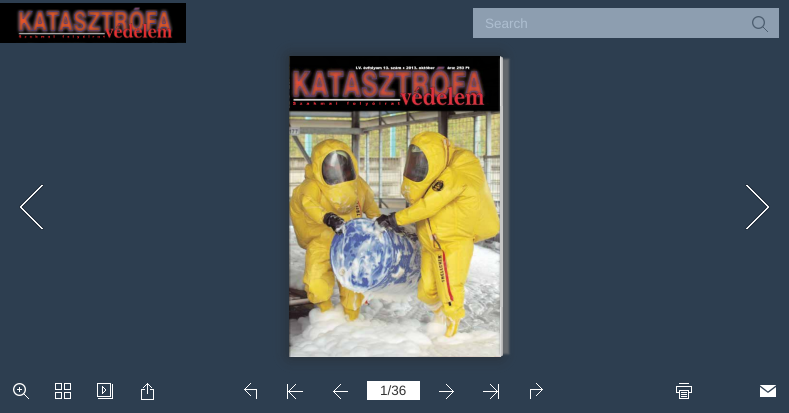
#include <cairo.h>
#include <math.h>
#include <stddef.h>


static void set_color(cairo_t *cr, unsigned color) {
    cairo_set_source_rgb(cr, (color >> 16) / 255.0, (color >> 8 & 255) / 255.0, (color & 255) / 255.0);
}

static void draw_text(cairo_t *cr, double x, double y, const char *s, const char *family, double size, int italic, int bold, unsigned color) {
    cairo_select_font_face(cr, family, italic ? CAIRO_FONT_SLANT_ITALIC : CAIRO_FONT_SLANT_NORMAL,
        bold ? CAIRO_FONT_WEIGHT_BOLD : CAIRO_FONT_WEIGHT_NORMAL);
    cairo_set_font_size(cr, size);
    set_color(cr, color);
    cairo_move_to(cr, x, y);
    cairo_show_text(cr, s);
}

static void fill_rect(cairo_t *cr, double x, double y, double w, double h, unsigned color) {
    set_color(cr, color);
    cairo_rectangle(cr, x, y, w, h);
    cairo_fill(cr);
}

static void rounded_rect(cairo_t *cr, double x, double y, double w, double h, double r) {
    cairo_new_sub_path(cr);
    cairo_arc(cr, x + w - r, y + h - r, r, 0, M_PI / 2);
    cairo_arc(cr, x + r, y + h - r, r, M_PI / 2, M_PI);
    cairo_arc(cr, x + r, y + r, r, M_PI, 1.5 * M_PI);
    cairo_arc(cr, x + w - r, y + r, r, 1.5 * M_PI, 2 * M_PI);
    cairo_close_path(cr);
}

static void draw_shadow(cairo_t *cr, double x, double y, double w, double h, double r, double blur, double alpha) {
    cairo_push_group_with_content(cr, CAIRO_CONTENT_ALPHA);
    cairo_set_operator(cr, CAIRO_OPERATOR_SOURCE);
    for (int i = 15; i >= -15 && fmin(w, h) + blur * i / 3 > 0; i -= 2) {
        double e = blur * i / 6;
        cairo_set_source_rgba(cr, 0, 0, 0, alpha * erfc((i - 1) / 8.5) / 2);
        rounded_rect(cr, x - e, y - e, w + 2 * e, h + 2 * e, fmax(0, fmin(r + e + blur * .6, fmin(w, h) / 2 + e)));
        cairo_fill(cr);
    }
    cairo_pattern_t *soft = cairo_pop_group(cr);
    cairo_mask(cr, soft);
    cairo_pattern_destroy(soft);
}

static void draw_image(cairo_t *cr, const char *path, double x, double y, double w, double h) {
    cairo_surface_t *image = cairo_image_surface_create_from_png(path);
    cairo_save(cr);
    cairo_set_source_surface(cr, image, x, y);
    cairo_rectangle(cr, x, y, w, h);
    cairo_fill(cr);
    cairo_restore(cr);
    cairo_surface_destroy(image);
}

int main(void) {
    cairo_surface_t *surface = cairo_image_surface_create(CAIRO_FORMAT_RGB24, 789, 413);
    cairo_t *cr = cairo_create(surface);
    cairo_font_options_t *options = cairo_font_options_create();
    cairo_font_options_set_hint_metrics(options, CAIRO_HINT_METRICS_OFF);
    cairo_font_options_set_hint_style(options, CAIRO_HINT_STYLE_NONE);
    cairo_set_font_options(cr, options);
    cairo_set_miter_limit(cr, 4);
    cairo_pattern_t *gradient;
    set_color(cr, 0x2D3E50);
    cairo_paint(cr);
    draw_image(cr, "assets/img1.png", 0, 3, 186, 40);
    draw_image(cr, "assets/img5.png", 289, 356, 212, 1);
    set_color(cr, 0x282828);
    draw_shadow(cr, 289, 56, 212, 301, 0, 7.5, 0.7);
    fill_rect(cr, 473, 8, 306, 30, 0x8D9EB0);
    draw_text(cr, 485, 28, "Search", "Liberation Sans", 13.5, 0, 0, 0xADBED0);
    draw_image(cr, "assets/img2.png", 752, 16, 16, 16);
    draw_image(cr, "assets/img3.png", 19, 184, 25, 46);
    draw_image(cr, "assets/img8.png", 289, 356, 212, 1);
    draw_image(cr, "assets/img4.png", 289, 56, 212, 301);
    gradient = cairo_pattern_create_linear(289, 207, 291, 207);
    cairo_pattern_add_color_stop_rgba(gradient, 0, 0.078, 0.078, 0.078, 0.5);
    cairo_pattern_add_color_stop_rgba(gradient, 1, 0.078, 0.078, 0.078, 0);
    cairo_set_source(cr, gradient);
    cairo_pattern_destroy(gradient);
    cairo_rectangle(cr, 289, 56, 2, 301);
    cairo_fill(cr);
    set_color(cr, 0x7D7D7D);
    draw_shadow(cr, 500, 59, 9, 295, 0, 1, 0.7);
    draw_image(cr, "assets/img6.png", 500, 56, 3, 50);
    fill_rect(cr, 500, 106, 3, 201, 0xC7C7C7);
    draw_image(cr, "assets/img7.png", 500, 307, 3, 50);
    draw_image(cr, "assets/img9.png", 745, 184, 25, 46);
    draw_image(cr, "assets/img10.png", 13, 383, 16, 16);
    draw_image(cr, "assets/img11.png", 55, 383, 16, 16);
    draw_image(cr, "assets/img12.png", 97, 383, 16, 16);
    draw_image(cr, "assets/img13.png", 141, 383, 13, 17);
    draw_image(cr, "assets/img14.png", 244, 383, 13, 16);
    draw_image(cr, "assets/img15.png", 287, 384, 16, 15);
    draw_image(cr, "assets/img16.png", 333, 384, 15, 15);
    fill_rect(cr, 367, 381, 53, 19, 0xFFFFFF);
    draw_text(cr, 380, 395, "1/36", "Liberation Sans", 13.5, 0, 0, 0x333333);
    draw_image(cr, "assets/img17.png", 439, 384, 15, 15);
    draw_image(cr, "assets/img18.png", 483, 384, 16, 15);
    draw_image(cr, "assets/img19.png", 530, 383, 13, 16);
    draw_image(cr, "assets/img20.png", 676, 383, 16, 16);
    draw_image(cr, "assets/img21.png", 760, 385, 16, 12);
    cairo_surface_write_to_png(surface, "output.png");
    cairo_font_options_destroy(options);
    cairo_destroy(cr);
    cairo_surface_destroy(surface);
    return 0;
}
